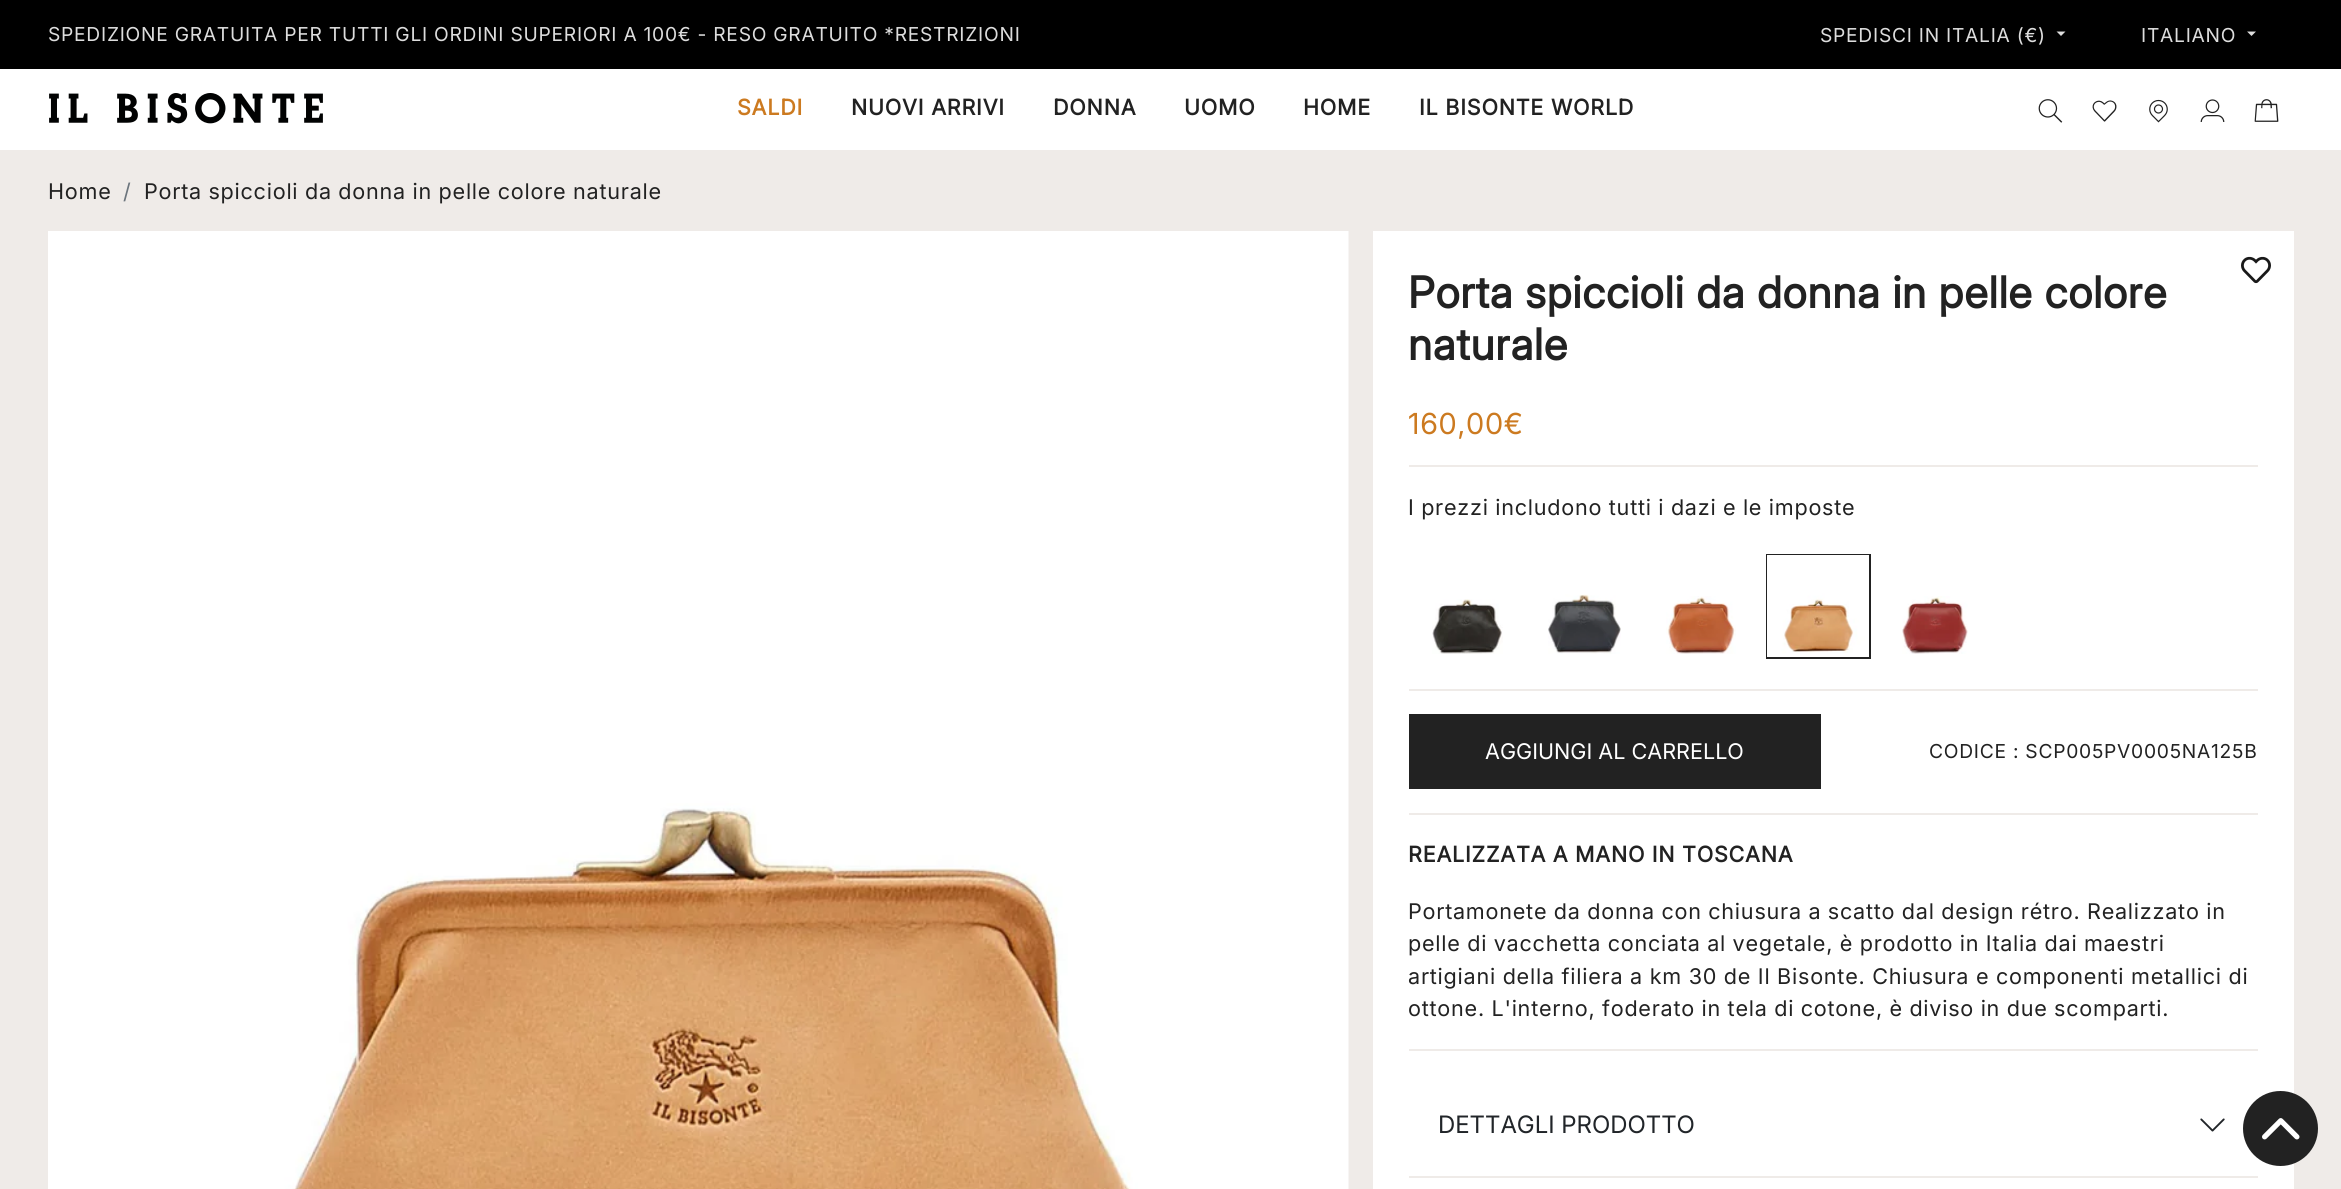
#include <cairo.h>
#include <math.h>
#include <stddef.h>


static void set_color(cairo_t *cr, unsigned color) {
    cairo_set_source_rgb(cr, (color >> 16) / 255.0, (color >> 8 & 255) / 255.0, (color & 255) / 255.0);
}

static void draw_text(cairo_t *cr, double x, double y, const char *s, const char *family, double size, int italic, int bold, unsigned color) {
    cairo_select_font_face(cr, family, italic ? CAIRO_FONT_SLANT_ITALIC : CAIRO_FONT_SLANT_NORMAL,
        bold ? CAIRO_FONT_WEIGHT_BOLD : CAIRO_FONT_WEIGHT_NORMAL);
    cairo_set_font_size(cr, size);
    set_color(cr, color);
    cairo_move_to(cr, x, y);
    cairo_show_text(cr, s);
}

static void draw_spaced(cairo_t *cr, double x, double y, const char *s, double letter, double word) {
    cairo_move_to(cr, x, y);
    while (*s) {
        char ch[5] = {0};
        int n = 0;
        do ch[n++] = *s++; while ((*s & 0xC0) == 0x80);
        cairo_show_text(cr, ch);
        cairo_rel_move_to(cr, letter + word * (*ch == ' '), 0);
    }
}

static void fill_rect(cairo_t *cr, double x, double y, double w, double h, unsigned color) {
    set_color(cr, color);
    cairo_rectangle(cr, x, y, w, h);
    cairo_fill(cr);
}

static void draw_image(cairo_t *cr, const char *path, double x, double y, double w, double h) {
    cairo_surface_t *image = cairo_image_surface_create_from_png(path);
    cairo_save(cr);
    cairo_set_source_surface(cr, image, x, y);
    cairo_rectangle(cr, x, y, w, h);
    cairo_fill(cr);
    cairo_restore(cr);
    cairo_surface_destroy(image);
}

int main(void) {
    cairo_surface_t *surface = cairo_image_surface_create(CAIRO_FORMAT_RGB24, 2341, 1189);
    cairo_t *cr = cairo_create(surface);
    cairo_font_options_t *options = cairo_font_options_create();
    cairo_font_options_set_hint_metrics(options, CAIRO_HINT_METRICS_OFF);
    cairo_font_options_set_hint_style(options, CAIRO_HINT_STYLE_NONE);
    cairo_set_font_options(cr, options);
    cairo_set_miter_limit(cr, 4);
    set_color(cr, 0xFFFFFF);
    cairo_paint(cr);
    fill_rect(cr, 0, 0, 2341, 69, 0x000000);
    cairo_select_font_face(cr, "Inter", CAIRO_FONT_SLANT_NORMAL, CAIRO_FONT_WEIGHT_NORMAL);
    cairo_set_font_size(cr, 19.2);
    set_color(cr, 0xDDDDDD);
    draw_spaced(cr, 48, 41, "SPEDIZIONE GRATUITA PER TUTTI GLI ORDINI SUPERIORI A 100€ - RESO GRATUITO *RESTRIZIONI", 0.75, 0);
    draw_spaced(cr, 1820, 42, "SPEDISCI IN ITALIA (€)", 0.75, 0);
    cairo_new_path(cr);
    cairo_move_to(cr, 2056.5, 31.5);
    cairo_line_to(cr, 2065.5, 31.5);
    cairo_line_to(cr, 2061, 36);
    cairo_close_path(cr);
    cairo_fill(cr);
    draw_spaced(cr, 2141, 42, "ITALIANO", 0.75, 0);
    cairo_new_path(cr);
    cairo_move_to(cr, 2247, 31.5);
    cairo_line_to(cr, 2256, 31.5);
    cairo_line_to(cr, 2251.5, 36);
    cairo_close_path(cr);
    cairo_fill(cr);
    draw_image(cr, "assets/img1.png", 49, 93, 274, 31);
    cairo_select_font_face(cr, "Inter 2", CAIRO_FONT_SLANT_NORMAL, CAIRO_FONT_WEIGHT_BOLD);
    cairo_set_font_size(cr, 21.6);
    set_color(cr, 0xCC7A20);
    draw_spaced(cr, 737, 115, "SALDI", 0.75, 0);
    set_color(cr, 0x222222);
    draw_spaced(cr, 851, 115, "NUOVI ARRIVI", 0.75, 0);
    draw_spaced(cr, 1053, 115, "DONNA", 0.75, 0);
    draw_spaced(cr, 1184, 115, "UOMO", 0.75, 0);
    draw_spaced(cr, 1303, 115, "HOME", 0.75, 0);
    draw_spaced(cr, 1419, 115, "IL BISONTE WORLD", 0.75, 0);
    draw_image(cr, "assets/img2.png", 2038, 99, 25, 24);
    draw_image(cr, "assets/img3.png", 2092, 100, 25, 22);
    draw_image(cr, "assets/img4.png", 2149, 99, 19, 24);
    draw_image(cr, "assets/img5.png", 2200, 99, 25, 23);
    draw_image(cr, "assets/img6.png", 2254, 99, 25, 23);
    fill_rect(cr, 0, 150, 2341, 1039, 0xEFEBE8);
    cairo_select_font_face(cr, "Inter", CAIRO_FONT_SLANT_NORMAL, CAIRO_FONT_WEIGHT_NORMAL);
    set_color(cr, 0x222222);
    draw_spaced(cr, 48, 199, "Home", 0.75, 0);
    set_color(cr, 0x6C757D);
    draw_spaced(cr, 123, 199, "/", 0.75, 0);
    set_color(cr, 0x222222);
    draw_spaced(cr, 144, 199, "Porta spiccioli da donna in pelle colore naturale", 0.75, -0.25);
    draw_image(cr, "assets/img7.png", 48, 231, 1301, 958);
    fill_rect(cr, 1373, 231, 921, 958, 0xFFFFFF);
    draw_image(cr, "assets/img8.png", 2241, 256, 30, 28);
    cairo_select_font_face(cr, "Inter", CAIRO_FONT_SLANT_NORMAL, CAIRO_FONT_WEIGHT_BOLD);
    cairo_set_font_size(cr, 43.25);
    set_color(cr, 0x222222);
    draw_spaced(cr, 1408, 308, "Porta spiccioli da donna in pelle colore", 0.75, 0);
    draw_spaced(cr, 1408, 360, "naturale", 0.75, 0);
    cairo_select_font_face(cr, "Inter 2", CAIRO_FONT_SLANT_NORMAL, CAIRO_FONT_WEIGHT_NORMAL);
    cairo_set_font_size(cr, 29);
    set_color(cr, 0xCC7A20);
    draw_spaced(cr, 1408, 434, "160,00€", 0.75, 0);
    fill_rect(cr, 1409, 465, 849, 2, 0xEFEBE8);
    cairo_select_font_face(cr, "Inter", CAIRO_FONT_SLANT_NORMAL, CAIRO_FONT_WEIGHT_NORMAL);
    cairo_set_font_size(cr, 21.6);
    set_color(cr, 0x222222);
    draw_spaced(cr, 1408, 515, "I prezzi includono tutti i dazi e le imposte", 0.75, -0.25);
    draw_image(cr, "assets/img9.png", 1432, 599, 71, 55);
    draw_image(cr, "assets/img10.png", 1548, 594, 73, 60);
    draw_image(cr, "assets/img11.png", 1666, 596, 70, 58);
    cairo_rectangle(cr, 1767, 555, 103, 103);
    cairo_stroke(cr);
    draw_image(cr, "assets/img12.png", 1767, 555, 102, 102);
    draw_image(cr, "assets/img13.png", 1902, 596, 66, 58);
    fill_rect(cr, 1409, 689, 849, 2, 0xEFEBE8);
    fill_rect(cr, 1409, 714, 412, 75, 0x222222);
    draw_text(cr, 1485, 759, "AGGIUNGI AL CARRELLO", "Inter", 21.6, 0, 0, 0xFFFFFF);
    cairo_set_font_size(cr, 19.2);
    set_color(cr, 0x222222);
    draw_spaced(cr, 1929, 758, "CODICE : SCP005PV0005NA125B", 0.75, 0);
    fill_rect(cr, 1409, 813, 849, 2, 0xEFEBE8);
    cairo_select_font_face(cr, "Inter 2", CAIRO_FONT_SLANT_NORMAL, CAIRO_FONT_WEIGHT_BOLD);
    cairo_set_font_size(cr, 21.6);
    set_color(cr, 0x222222);
    draw_spaced(cr, 1408, 862, "REALIZZATA A MANO IN TOSCANA", 0.75, -0.25);
    cairo_select_font_face(cr, "Inter", CAIRO_FONT_SLANT_NORMAL, CAIRO_FONT_WEIGHT_NORMAL);
    draw_spaced(cr, 1408, 919, "Portamonete da donna con chiusura a scatto dal design rétro. Realizzato in", 0.75, -0.25);
    draw_spaced(cr, 1408, 951, "pelle di vacchetta conciata al vegetale, è prodotto in Italia dai maestri", 0.75, -0.25);
    draw_spaced(cr, 1408, 984, "artigiani della filiera a km 30 de Il Bisonte. Chiusura e componenti metallici di", 0.75, -0.1);
    draw_spaced(cr, 1408, 1016, "ottone. L'interno, foderato in tela di cotone, è diviso in due scomparti.", 0.75, -0.25);
    fill_rect(cr, 1409, 1049, 849, 2, 0xEFEBE8);
    fill_rect(cr, 1409, 1176, 849, 2, 0xEFEBE8);
    draw_text(cr, 1438, 1133, "DETTAGLI PRODOTTO", "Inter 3", 24, 0, 0, 0x212529);
    draw_image(cr, "assets/img14.png", 2200, 1118, 25, 14);
    set_color(cr, 0x222222);
    cairo_arc(cr, 2280.5, 1128.5, 37.5, 0, 2 * M_PI);
    cairo_fill(cr);
    draw_image(cr, "assets/img15.png", 2262, 1118, 38, 22);
    cairo_surface_write_to_png(surface, "output.png");
    cairo_font_options_destroy(options);
    cairo_destroy(cr);
    cairo_surface_destroy(surface);
    return 0;
}
